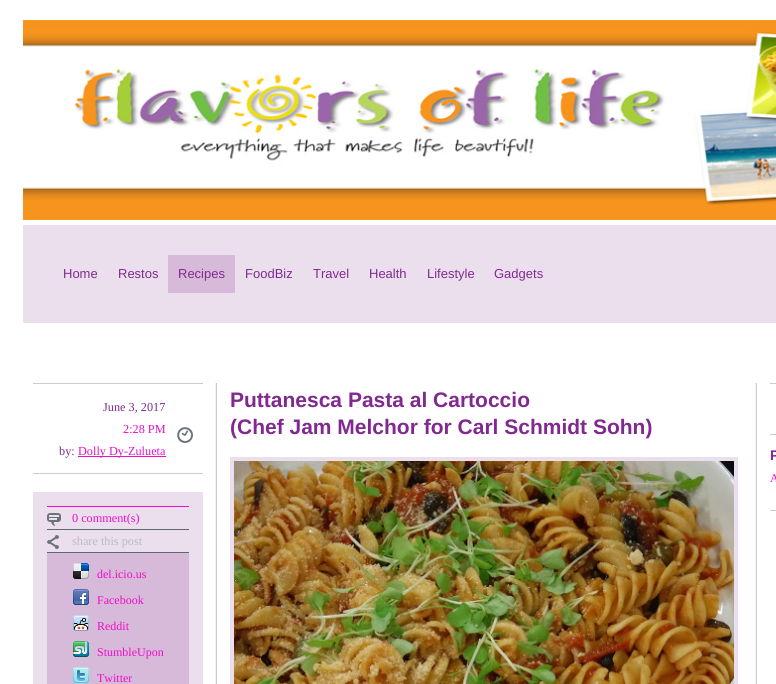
#include <cairo.h>
#include <math.h>
#include <stddef.h>


static void set_color(cairo_t *cr, unsigned color) {
    cairo_set_source_rgb(cr, (color >> 16) / 255.0, (color >> 8 & 255) / 255.0, (color & 255) / 255.0);
}

static void draw_text(cairo_t *cr, double x, double y, const char *s, const char *family, double size, int italic, int bold, unsigned color) {
    cairo_select_font_face(cr, family, italic ? CAIRO_FONT_SLANT_ITALIC : CAIRO_FONT_SLANT_NORMAL,
        bold ? CAIRO_FONT_WEIGHT_BOLD : CAIRO_FONT_WEIGHT_NORMAL);
    cairo_set_font_size(cr, size);
    set_color(cr, color);
    cairo_move_to(cr, x, y);
    cairo_show_text(cr, s);
}

static void fill_rect(cairo_t *cr, double x, double y, double w, double h, unsigned color) {
    set_color(cr, color);
    cairo_rectangle(cr, x, y, w, h);
    cairo_fill(cr);
}

static void draw_image(cairo_t *cr, const char *path, double x, double y, double w, double h) {
    cairo_surface_t *image = cairo_image_surface_create_from_png(path);
    cairo_save(cr);
    cairo_set_source_surface(cr, image, x, y);
    cairo_rectangle(cr, x, y, w, h);
    cairo_fill(cr);
    cairo_restore(cr);
    cairo_surface_destroy(image);
}

int main(void) {
    cairo_surface_t *surface = cairo_image_surface_create(CAIRO_FORMAT_RGB24, 776, 684);
    cairo_t *cr = cairo_create(surface);
    cairo_font_options_t *options = cairo_font_options_create();
    cairo_font_options_set_hint_metrics(options, CAIRO_HINT_METRICS_OFF);
    cairo_font_options_set_hint_style(options, CAIRO_HINT_STYLE_NONE);
    cairo_set_font_options(cr, options);
    cairo_set_miter_limit(cr, 4);
    set_color(cr, 0xFFFFFF);
    cairo_paint(cr);
    draw_image(cr, "assets/img1.png", 23, 20, 753, 200);
    fill_rect(cr, 23, 225, 753, 98, 0xECDFED);
    draw_text(cr, 63, 278, "Home", "Liberation Sans", 13, 0, 0, 0x812990);
    draw_text(cr, 118, 278, "Restos", "Liberation Sans", 13, 0, 0, 0x812990);
    fill_rect(cr, 168, 255, 67, 38, 0xD7BAD9);
    draw_text(cr, 178, 278, "Recipes", "Liberation Sans", 13, 0, 0, 0x812990);
    draw_text(cr, 245, 278, "FoodBiz", "Liberation Sans", 13, 0, 0, 0x812990);
    draw_text(cr, 313, 278, "Travel", "Liberation Sans", 13, 0, 0, 0x812990);
    draw_text(cr, 369, 278, "Health", "Liberation Sans", 13, 0, 0, 0x812990);
    draw_text(cr, 427, 278, "Lifestyle", "Liberation Sans", 13, 0, 0, 0x812990);
    draw_text(cr, 494, 278, "Gadgets", "Liberation Sans", 13, 0, 0, 0x812990);
    draw_image(cr, "assets/img2.png", 215, 383, 2, 301);
    fill_rect(cr, 33, 383, 170, 1, 0xCCCCCC);
    fill_rect(cr, 33, 473, 170, 1, 0xCCCCCC);
    draw_image(cr, "assets/img3.png", 177, 427, 16, 16);
    draw_text(cr, 103, 411, "June 3, 2017", "Liberation Serif", 12.25, 0, 0, 0x812990);
    draw_text(cr, 123, 433, "2:28 PM", "Liberation Serif", 12.25, 0, 0, 0xEB0EC9);
    draw_text(cr, 59, 455, "by:", "Liberation Serif", 12.25, 0, 0, 0x812990);
    fill_rect(cr, 78, 456, 88, 1, 0xEB0EC9);
    draw_text(cr, 78, 455, "Dolly Dy-Zulueta", "Liberation Serif", 12.25, 0, 0, 0xEB0EC9);
    fill_rect(cr, 33, 492, 170, 192, 0xECDFED);
    draw_image(cr, "assets/img4.png", 47, 513, 14, 13);
    fill_rect(cr, 47, 506, 142, 1, 0xEB0EC9);
    draw_text(cr, 72, 522, "0 comment(s)", "Liberation Serif", 12.25, 0, 0, 0xEB0EC9);
    draw_image(cr, "assets/img5.png", 47, 535, 12, 14);
    fill_rect(cr, 47, 529, 142, 1, 0x5F676D);
    draw_text(cr, 72, 545, "share this post", "Liberation Serif", 12.25, 0, 0, 0xB6BCC1);
    fill_rect(cr, 47, 553, 142, 131, 0xD7BAD9);
    fill_rect(cr, 47, 552, 142, 1, 0x5F676D);
    draw_image(cr, "assets/img6.png", 73, 563, 16, 16);
    draw_text(cr, 97, 578, "del.icio.us", "Liberation Serif", 12, 0, 0, 0xEB0EC9);
    draw_image(cr, "assets/img7.png", 73, 589, 16, 16);
    draw_text(cr, 97, 604, "Facebook", "Liberation Serif", 12, 0, 0, 0xEB0EC9);
    draw_image(cr, "assets/img8.png", 73, 615, 16, 16);
    draw_text(cr, 97, 630, "Reddit", "Liberation Serif", 12, 0, 0, 0xEB0EC9);
    draw_image(cr, "assets/img9.png", 73, 641, 16, 16);
    draw_text(cr, 97, 656, "StumbleUpon", "Liberation Serif", 12, 0, 0, 0xEB0EC9);
    draw_image(cr, "assets/img10.png", 73, 667, 16, 16);
    draw_text(cr, 97, 682, "Twitter", "Liberation Serif", 12, 0, 0, 0xEB0EC9);
    draw_text(cr, 230, 407, "Puttanesca Pasta al Cartoccio", "Liberation Sans", 21, 0, 1, 0x812990);
    draw_text(cr, 230, 434, "(Chef Jam Melchor for Carl Schmidt Sohn)", "Liberation Sans", 21, 0, 1, 0x812990);
    fill_rect(cr, 230, 457, 508, 227, 0xECDFED);
    draw_image(cr, "assets/img11.png", 234, 461, 500, 223);
    draw_image(cr, "assets/img2.png", 755, 383, 2, 301);
    fill_rect(cr, 770, 383, 6, 1, 0xCCCCCC);
    fill_rect(cr, 770, 434, 6, 1, 0xCCCCCC);
    draw_text(cr, 770, 460, "P", "Liberation Sans", 14, 0, 1, 0x812990);
    draw_text(cr, 770, 482, "A", "Liberation Serif", 12, 0, 0, 0xEB0EC9);
    fill_rect(cr, 770, 510, 6, 1, 0xCCCCCC);
    cairo_surface_write_to_png(surface, "output.png");
    cairo_font_options_destroy(options);
    cairo_destroy(cr);
    cairo_surface_destroy(surface);
    return 0;
}
